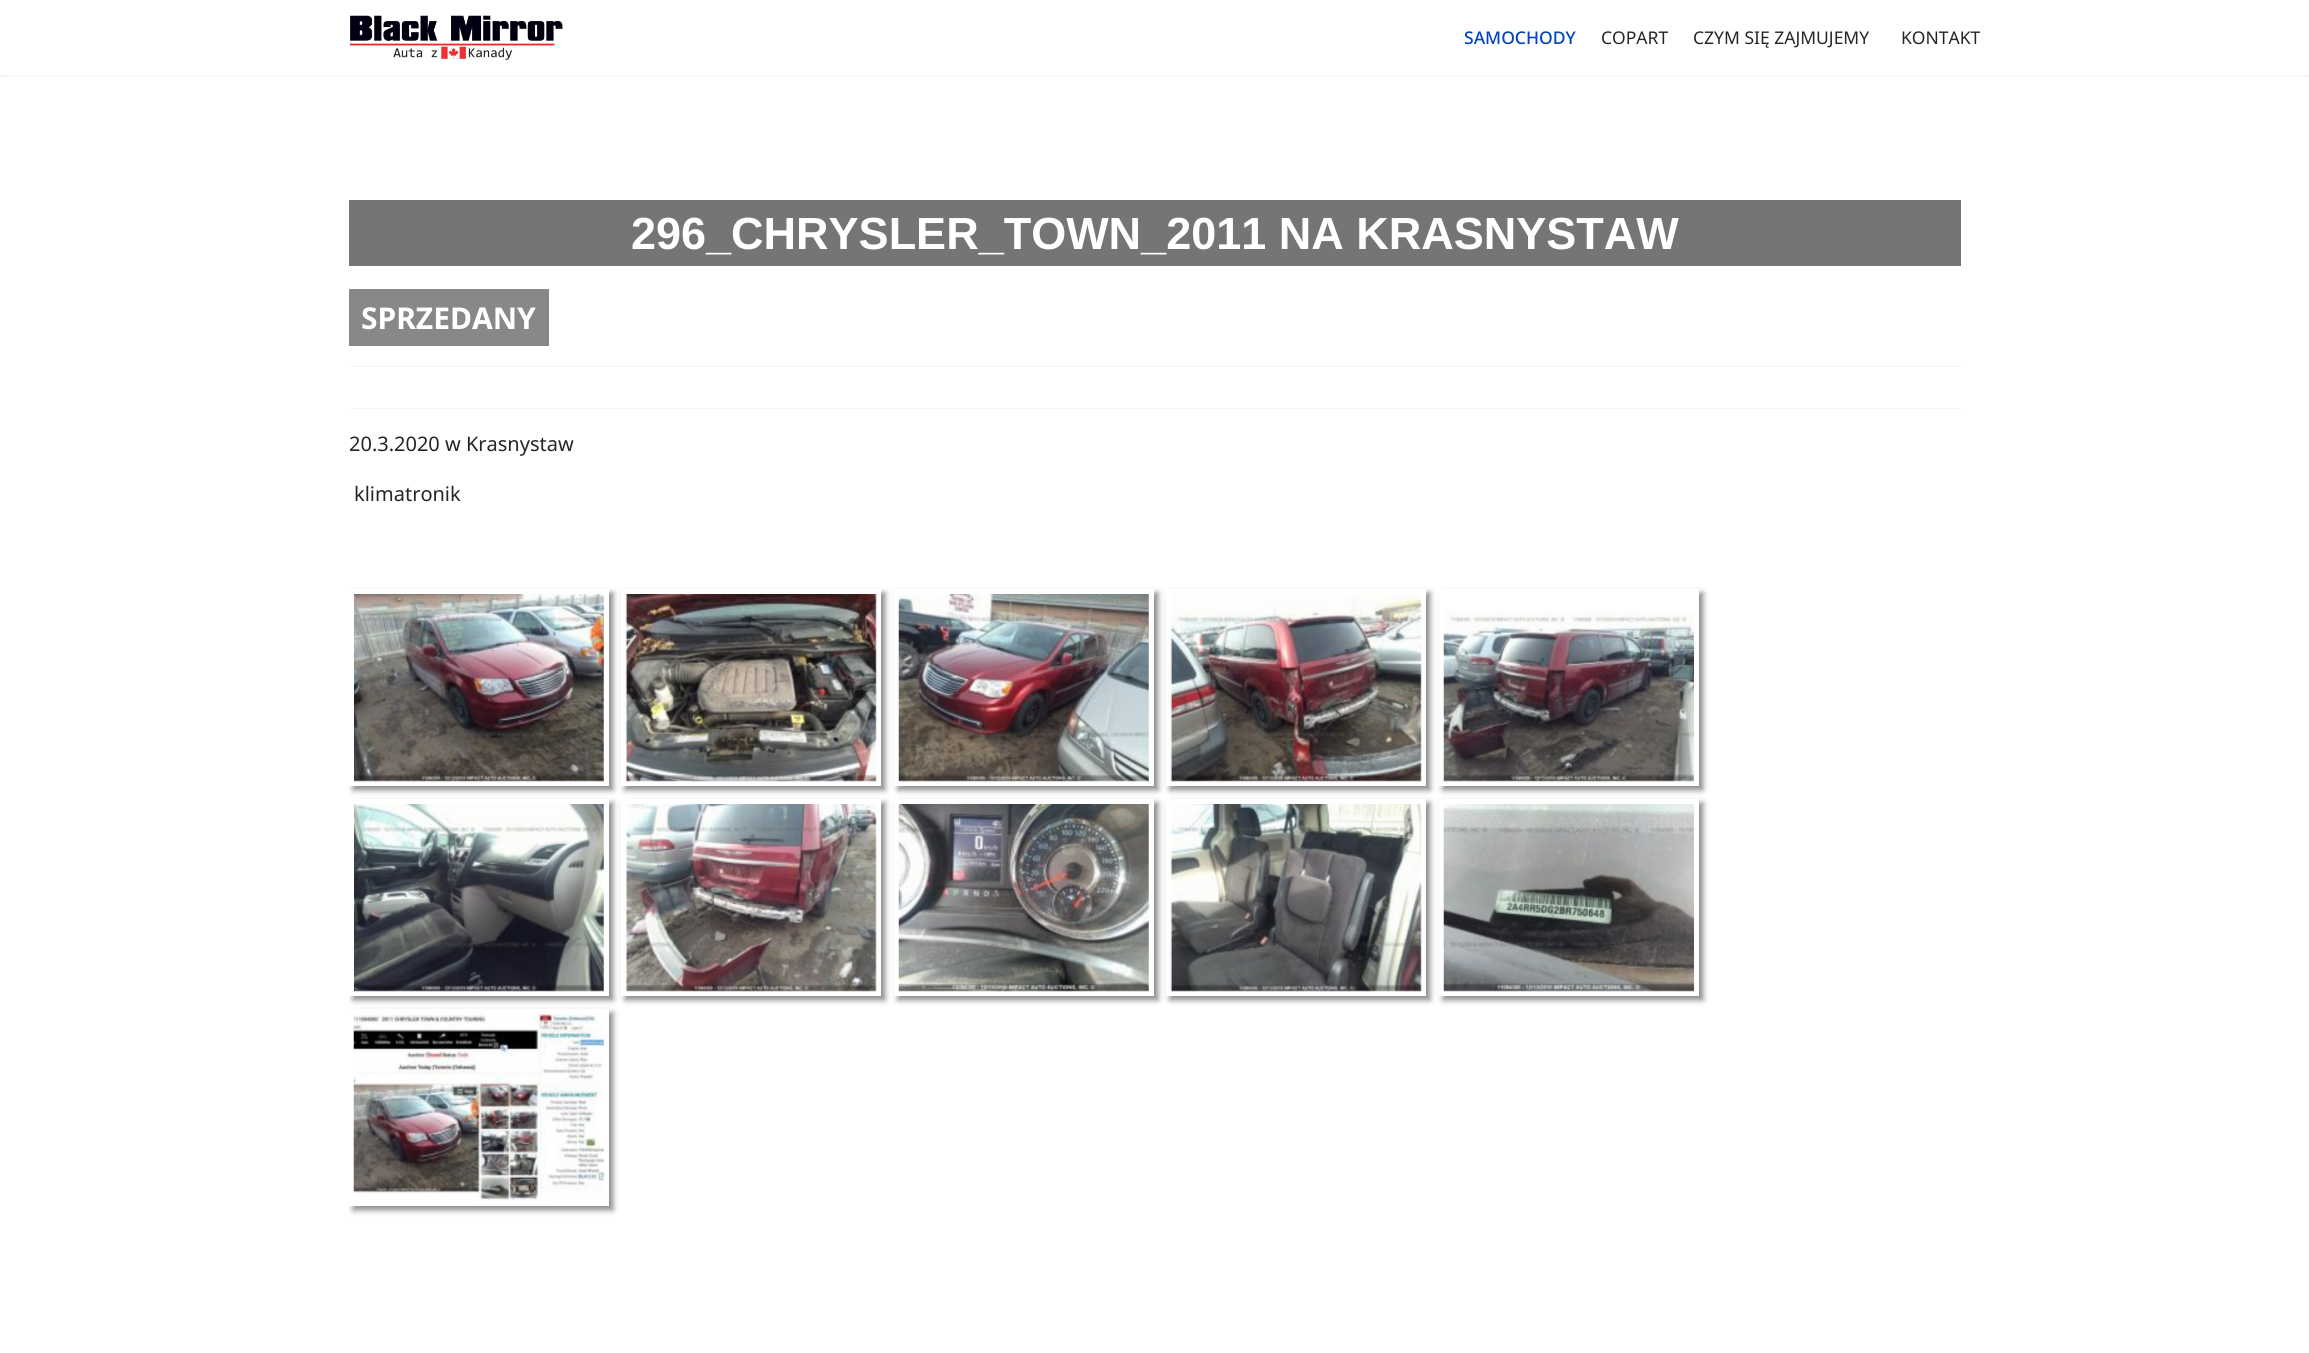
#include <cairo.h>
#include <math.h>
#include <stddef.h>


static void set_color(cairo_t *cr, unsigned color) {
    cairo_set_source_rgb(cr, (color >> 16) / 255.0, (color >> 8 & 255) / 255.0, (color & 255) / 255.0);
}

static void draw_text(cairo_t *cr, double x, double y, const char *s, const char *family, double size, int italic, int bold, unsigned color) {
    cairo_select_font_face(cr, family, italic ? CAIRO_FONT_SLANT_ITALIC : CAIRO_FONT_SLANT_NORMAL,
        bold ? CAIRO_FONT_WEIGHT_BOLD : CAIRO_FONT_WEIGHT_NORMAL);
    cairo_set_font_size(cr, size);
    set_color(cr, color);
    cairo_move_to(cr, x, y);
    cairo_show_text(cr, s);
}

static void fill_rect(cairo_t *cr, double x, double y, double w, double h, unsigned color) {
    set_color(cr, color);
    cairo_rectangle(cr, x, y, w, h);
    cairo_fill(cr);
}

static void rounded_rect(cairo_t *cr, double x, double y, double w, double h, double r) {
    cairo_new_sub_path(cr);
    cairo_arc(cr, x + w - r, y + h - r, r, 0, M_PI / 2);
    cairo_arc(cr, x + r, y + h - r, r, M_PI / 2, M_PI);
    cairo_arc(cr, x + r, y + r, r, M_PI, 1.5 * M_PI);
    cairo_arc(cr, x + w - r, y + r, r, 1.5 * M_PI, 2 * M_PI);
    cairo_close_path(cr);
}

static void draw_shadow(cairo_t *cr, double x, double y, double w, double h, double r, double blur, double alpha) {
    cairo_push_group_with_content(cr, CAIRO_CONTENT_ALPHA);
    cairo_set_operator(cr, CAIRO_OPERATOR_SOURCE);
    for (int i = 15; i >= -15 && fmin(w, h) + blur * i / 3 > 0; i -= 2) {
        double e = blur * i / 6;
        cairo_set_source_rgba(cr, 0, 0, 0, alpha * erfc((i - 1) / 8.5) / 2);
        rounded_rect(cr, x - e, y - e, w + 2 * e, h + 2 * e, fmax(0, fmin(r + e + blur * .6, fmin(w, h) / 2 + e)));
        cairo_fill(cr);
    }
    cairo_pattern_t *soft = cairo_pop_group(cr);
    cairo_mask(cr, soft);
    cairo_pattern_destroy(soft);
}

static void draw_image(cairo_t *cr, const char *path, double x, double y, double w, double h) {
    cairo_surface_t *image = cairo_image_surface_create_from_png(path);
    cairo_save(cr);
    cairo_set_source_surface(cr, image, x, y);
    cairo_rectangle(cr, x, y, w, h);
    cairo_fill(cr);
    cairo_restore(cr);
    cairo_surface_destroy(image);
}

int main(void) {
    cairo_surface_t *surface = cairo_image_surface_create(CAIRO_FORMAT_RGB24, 2309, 1353);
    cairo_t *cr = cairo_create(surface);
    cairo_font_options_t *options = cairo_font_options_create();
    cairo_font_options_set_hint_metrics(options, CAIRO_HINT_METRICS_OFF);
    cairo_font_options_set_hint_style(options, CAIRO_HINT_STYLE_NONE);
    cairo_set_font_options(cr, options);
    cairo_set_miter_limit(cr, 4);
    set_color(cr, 0xFFFFFF);
    cairo_paint(cr);
    cairo_save(cr);
    cairo_rectangle(cr, 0, 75, 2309, 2);
    cairo_clip(cr);
    set_color(cr, 0x000000);
    draw_shadow(cr, 0, 0, 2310, 75, 0, 2.5, 0.1);
    cairo_restore(cr);
    draw_image(cr, "assets/img1.png", 349, 15, 214, 45);
    draw_text(cr, 1464, 44, "SAMOCHODY", "Noto Sans Medium", 17.5, 0, 0, 0x0345BF);
    draw_text(cr, 1601, 44, "COPART", "Noto Sans", 17.5, 0, 0, 0x252525);
    draw_text(cr, 1693, 44, "CZYM SIĘ ZAJMUJEMY", "Noto Sans", 17.5, 0, 0, 0x252525);
    draw_text(cr, 1901, 44, "KONTAKT", "Noto Sans", 17.5, 0, 0, 0x252525);
    fill_rect(cr, 349, 200, 1612, 66, 0x757575);
    draw_text(cr, 631, 249, "296_CHRYSLER_TOWN_2011 NA KRASNYSTAW", "Liberation Sans", 45, 0, 1, 0xFFFFFF);
    fill_rect(cr, 349, 289, 200, 57, 0x888888);
    draw_text(cr, 361, 329, "SPRZEDANY", "Noto Sans", 30, 0, 1, 0xFFFFFF);
    fill_rect(cr, 349, 366, 1612, 1, 0xF5F5F5);
    fill_rect(cr, 349, 408, 1612, 1, 0xF5F5F5);
    draw_text(cr, 349, 451, "20.3.2020 w Krasnystaw", "Noto Sans", 20, 0, 0, 0x252525);
    draw_text(cr, 354, 501, "klimatronik", "Noto Sans", 20, 0, 0, 0x252525);
    cairo_save(cr);
    cairo_rectangle(cr, 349, 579, 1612, 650);
    cairo_clip(cr);
    set_color(cr, 0x888888);
    draw_shadow(cr, 353, 593, 260, 197, 0, 3, 1);
    cairo_restore(cr);
    fill_rect(cr, 349, 589, 260, 197, 0xFFFFFF);
    draw_image(cr, "assets/img2.png", 354, 594, 250, 188);
    set_color(cr, 0x888888);
    draw_shadow(cr, 625, 593, 260, 197, 0, 3, 1);
    fill_rect(cr, 621, 589, 260, 197, 0xFFFFFF);
    draw_image(cr, "assets/img3.png", 625, 594, 252, 188);
    set_color(cr, 0x888888);
    draw_shadow(cr, 898, 593, 260, 197, 0, 3, 1);
    fill_rect(cr, 894, 589, 260, 197, 0xFFFFFF);
    draw_image(cr, "assets/img4.png", 898, 594, 251, 188);
    set_color(cr, 0x888888);
    draw_shadow(cr, 1170, 593, 260, 197, 0, 3, 1);
    fill_rect(cr, 1166, 589, 260, 197, 0xFFFFFF);
    draw_image(cr, "assets/img5.png", 1170, 594, 252, 188);
    set_color(cr, 0x888888);
    draw_shadow(cr, 1443, 593, 260, 197, 0, 3, 1);
    fill_rect(cr, 1439, 589, 260, 197, 0xFFFFFF);
    draw_image(cr, "assets/img6.png", 1443, 611, 251, 171);
    cairo_save(cr);
    cairo_rectangle(cr, 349, 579, 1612, 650);
    cairo_clip(cr);
    set_color(cr, 0x888888);
    draw_shadow(cr, 353, 803, 260, 197, 0, 3, 1);
    cairo_restore(cr);
    fill_rect(cr, 349, 799, 260, 197, 0xFFFFFF);
    draw_image(cr, "assets/img7.png", 354, 804, 250, 188);
    set_color(cr, 0x888888);
    draw_shadow(cr, 625, 803, 260, 197, 0, 3, 1);
    fill_rect(cr, 621, 799, 260, 197, 0xFFFFFF);
    draw_image(cr, "assets/img8.png", 625, 804, 252, 188);
    set_color(cr, 0x888888);
    draw_shadow(cr, 898, 803, 260, 197, 0, 3, 1);
    fill_rect(cr, 894, 799, 260, 197, 0xFFFFFF);
    draw_image(cr, "assets/img9.png", 898, 804, 251, 188);
    set_color(cr, 0x888888);
    draw_shadow(cr, 1170, 803, 260, 197, 0, 3, 1);
    fill_rect(cr, 1166, 799, 260, 197, 0xFFFFFF);
    draw_image(cr, "assets/img10.png", 1170, 804, 252, 188);
    set_color(cr, 0x888888);
    draw_shadow(cr, 1443, 803, 260, 197, 0, 3, 1);
    fill_rect(cr, 1439, 799, 260, 197, 0xFFFFFF);
    draw_image(cr, "assets/img11.png", 1443, 804, 251, 188);
    cairo_save(cr);
    cairo_rectangle(cr, 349, 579, 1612, 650);
    cairo_clip(cr);
    set_color(cr, 0x888888);
    draw_shadow(cr, 353, 1013, 260, 197, 0, 3, 1);
    cairo_restore(cr);
    fill_rect(cr, 349, 1009, 260, 197, 0xFFFFFF);
    draw_image(cr, "assets/img12.png", 353, 1013, 251, 188);
    cairo_surface_write_to_png(surface, "output.png");
    cairo_font_options_destroy(options);
    cairo_destroy(cr);
    cairo_surface_destroy(surface);
    return 0;
}
